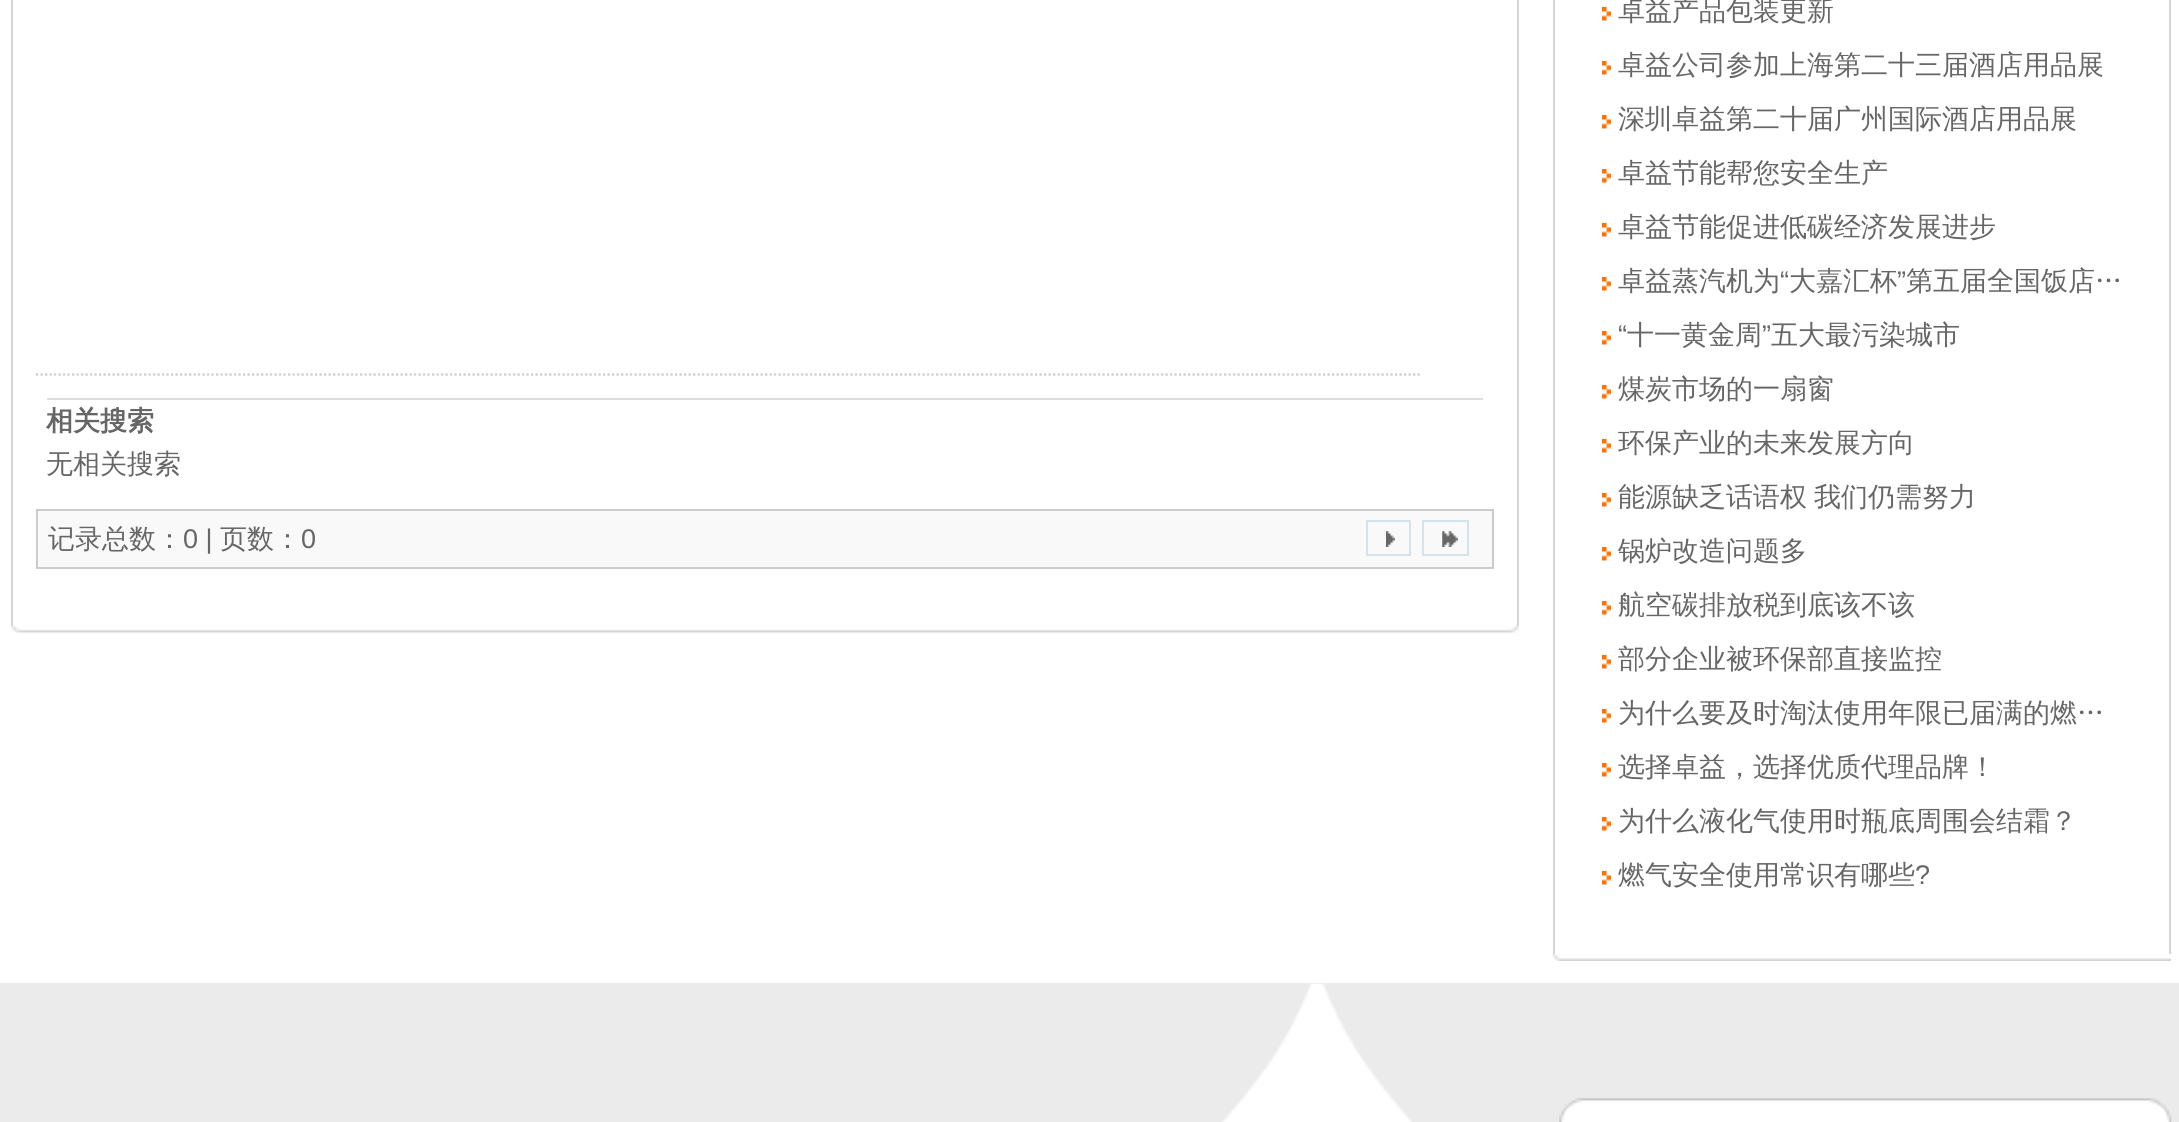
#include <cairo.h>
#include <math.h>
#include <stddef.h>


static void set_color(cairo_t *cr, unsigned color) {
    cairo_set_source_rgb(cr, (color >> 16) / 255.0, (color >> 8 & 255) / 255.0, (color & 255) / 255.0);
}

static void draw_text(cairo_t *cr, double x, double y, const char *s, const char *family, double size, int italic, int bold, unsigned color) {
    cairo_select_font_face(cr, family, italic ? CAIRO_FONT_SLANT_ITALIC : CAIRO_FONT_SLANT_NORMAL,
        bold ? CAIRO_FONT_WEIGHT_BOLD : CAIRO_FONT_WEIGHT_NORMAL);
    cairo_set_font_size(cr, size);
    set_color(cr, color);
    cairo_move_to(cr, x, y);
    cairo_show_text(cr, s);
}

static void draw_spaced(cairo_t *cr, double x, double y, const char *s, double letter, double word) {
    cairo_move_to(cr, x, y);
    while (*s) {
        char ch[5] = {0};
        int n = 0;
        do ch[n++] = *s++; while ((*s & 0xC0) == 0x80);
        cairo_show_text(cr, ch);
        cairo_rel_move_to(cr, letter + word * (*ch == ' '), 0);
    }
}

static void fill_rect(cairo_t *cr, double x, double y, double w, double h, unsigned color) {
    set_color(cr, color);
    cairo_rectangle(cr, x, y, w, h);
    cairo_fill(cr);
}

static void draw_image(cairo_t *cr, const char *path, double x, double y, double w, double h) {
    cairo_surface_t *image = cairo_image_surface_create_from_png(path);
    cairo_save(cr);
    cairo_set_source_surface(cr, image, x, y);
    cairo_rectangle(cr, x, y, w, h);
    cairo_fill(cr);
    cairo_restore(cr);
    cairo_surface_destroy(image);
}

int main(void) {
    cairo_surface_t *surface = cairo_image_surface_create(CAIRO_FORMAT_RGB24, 2179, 1122);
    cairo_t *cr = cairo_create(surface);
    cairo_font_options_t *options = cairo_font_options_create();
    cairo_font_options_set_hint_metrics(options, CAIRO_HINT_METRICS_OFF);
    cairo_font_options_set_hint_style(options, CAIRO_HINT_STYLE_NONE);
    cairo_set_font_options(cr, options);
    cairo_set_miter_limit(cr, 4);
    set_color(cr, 0xFFFFFF);
    cairo_paint(cr);
    fill_rect(cr, 1517, 0, 2, 626, 0xD5D5D5);
    fill_rect(cr, 11, 0, 2, 626, 0xD5D5D5);
    cairo_new_path(cr);
    cairo_move_to(cr, 36, 374.5);
    cairo_line_to(cr, 1420, 374.5);
    set_color(cr, 0xCCCCCC);
    cairo_set_line_width(cr, 2.2);
    cairo_set_dash(cr, (double[]){2.25, 2.25}, 2, 0);
    cairo_stroke(cr);
    fill_rect(cr, 47, 398, 1436, 2, 0xDDDDDD);
    draw_text(cr, 46, 430, "相关搜索", "WenQuanYi Zen Hei", 27, 0, 1, 0x666666);
    draw_text(cr, 46, 473, "无相关搜索", "WenQuanYi Zen Hei Medium", 27, 0, 0, 0x666666);
    set_color(cr, 0xF9F9F9);
    cairo_rectangle(cr, 37, 510, 1456, 58);
    cairo_fill_preserve(cr);
    set_color(cr, 0xCCCCCC);
    cairo_set_line_width(cr, 2);
    cairo_set_dash(cr, NULL, 0, 0);
    cairo_stroke(cr);
    draw_text(cr, 48, 548, "记录总数：", "WenQuanYi Zen Hei Medium", 27, 0, 0, 0x666666);
    draw_text(cr, 183, 548, "0 |", "Liberation Sans", 27, 0, 0, 0x666666);
    draw_text(cr, 220, 548, "页数：", "WenQuanYi Zen Hei Medium", 27, 0, 0, 0x666666);
    draw_text(cr, 301, 548, "0", "Liberation Sans", 27, 0, 0, 0x666666);
    draw_image(cr, "assets/img1.png", 1386, 531, 9, 16);
    cairo_rectangle(cr, 1367, 521, 43, 34);
    set_color(cr, 0xD4E3E9);
    cairo_stroke(cr);
    draw_image(cr, "assets/img2.png", 1442, 531, 16, 16);
    cairo_rectangle(cr, 1423, 521, 45, 34);
    cairo_stroke(cr);
    draw_image(cr, "assets/img3.png", 11, 625, 1508, 8);
    fill_rect(cr, 2169, 0, 2, 954, 0xD5D5D5);
    fill_rect(cr, 1553, 0, 2, 954, 0xD5D5D5);
    draw_image(cr, "assets/img4.png", 1602, 7, 9, 14);
    draw_text(cr, 1618, 20, "卓益产品包装更新", "WenQuanYi Zen Hei Medium", 27, 0, 0, 0x666666);
    draw_image(cr, "assets/img4.png", 1602, 61, 9, 14);
    draw_text(cr, 1618, 74, "卓益公司参加上海第二十三届酒店用品展", "WenQuanYi Zen Hei Medium", 27, 0, 0, 0x666666);
    draw_image(cr, "assets/img4.png", 1602, 115, 9, 14);
    draw_text(cr, 1618, 128, "深圳卓益第二十届广州国际酒店用品展", "WenQuanYi Zen Hei Medium", 27, 0, 0, 0x666666);
    draw_image(cr, "assets/img5.png", 1602, 169, 9, 14);
    draw_text(cr, 1618, 182, "卓益节能帮您安全生产", "WenQuanYi Zen Hei Medium", 27, 0, 0, 0x666666);
    draw_image(cr, "assets/img4.png", 1602, 223, 9, 14);
    draw_text(cr, 1618, 236, "卓益节能促进低碳经济发展进步", "WenQuanYi Zen Hei Medium", 27, 0, 0, 0x666666);
    draw_text(cr, 1618, 290, "卓益蒸汽机为", "WenQuanYi Zen Hei Medium", 27, 0, 0, 0x666666);
    draw_text(cr, 1780, 290, "“", "Liberation Sans", 27, 0, 0, 0x666666);
    draw_text(cr, 1789, 290, "大嘉汇杯", "WenQuanYi Zen Hei Medium", 27, 0, 0, 0x666666);
    draw_text(cr, 1897, 290, "”", "Liberation Sans", 27, 0, 0, 0x666666);
    draw_text(cr, 1906, 290, "第五届全国饭店…", "WenQuanYi Zen Hei Medium", 27, 0, 0, 0x666666);
    draw_image(cr, "assets/img4.png", 1602, 277, 9, 14);
    draw_text(cr, 1618, 344, "“", "Liberation Sans", 27, 0, 0, 0x666666);
    draw_text(cr, 1627, 344, "十一黄金周", "WenQuanYi Zen Hei Medium", 27, 0, 0, 0x666666);
    draw_text(cr, 1762, 344, "”", "Liberation Sans", 27, 0, 0, 0x666666);
    draw_text(cr, 1771, 344, "五大最污染城市", "WenQuanYi Zen Hei Medium", 27, 0, 0, 0x666666);
    draw_image(cr, "assets/img4.png", 1602, 331, 9, 14);
    draw_image(cr, "assets/img4.png", 1602, 385, 9, 14);
    draw_text(cr, 1618, 398, "煤炭市场的一扇窗", "WenQuanYi Zen Hei Medium", 27, 0, 0, 0x666666);
    draw_image(cr, "assets/img4.png", 1602, 439, 9, 14);
    draw_text(cr, 1618, 452, "环保产业的未来发展方向", "WenQuanYi Zen Hei Medium", 27, 0, 0, 0x666666);
    draw_image(cr, "assets/img4.png", 1602, 493, 9, 14);
    draw_spaced(cr, 1618, 506, "能源缺乏话语权 我们仍需努力", 0, -1);
    draw_image(cr, "assets/img4.png", 1602, 547, 9, 14);
    draw_text(cr, 1618, 560, "锅炉改造问题多", "WenQuanYi Zen Hei Medium", 27, 0, 0, 0x666666);
    draw_image(cr, "assets/img4.png", 1602, 601, 9, 14);
    draw_text(cr, 1618, 614, "航空碳排放税到底该不该", "WenQuanYi Zen Hei Medium", 27, 0, 0, 0x666666);
    draw_image(cr, "assets/img4.png", 1602, 655, 9, 14);
    draw_text(cr, 1618, 668, "部分企业被环保部直接监控", "WenQuanYi Zen Hei Medium", 27, 0, 0, 0x666666);
    draw_image(cr, "assets/img4.png", 1602, 709, 9, 14);
    draw_text(cr, 1618, 722, "为什么要及时淘汰使用年限已届满的燃…", "WenQuanYi Zen Hei Medium", 27, 0, 0, 0x666666);
    draw_image(cr, "assets/img4.png", 1602, 763, 9, 14);
    draw_text(cr, 1618, 776, "选择卓益，选择优质代理品牌！", "WenQuanYi Zen Hei Medium", 27, 0, 0, 0x666666);
    draw_image(cr, "assets/img4.png", 1602, 817, 9, 14);
    draw_text(cr, 1618, 830, "为什么液化气使用时瓶底周围会结霜？", "WenQuanYi Zen Hei Medium", 27, 0, 0, 0x666666);
    draw_image(cr, "assets/img4.png", 1602, 871, 9, 14);
    draw_text(cr, 1618, 884, "燃气安全使用常识有哪些", "WenQuanYi Zen Hei Medium", 27, 0, 0, 0x666666);
    draw_text(cr, 1915, 884, "?", "Liberation Sans", 27, 0, 0, 0x666666);
    draw_image(cr, "assets/img6.png", 1552, 954, 619, 7);
    fill_rect(cr, 0, 983, 2179, 139, 0xEBEBEB);
    draw_image(cr, "assets/img7.png", 1222, 983, 190, 139);
    draw_image(cr, "assets/img8.png", 1559, 1098, 613, 24);
    cairo_surface_write_to_png(surface, "output.png");
    cairo_font_options_destroy(options);
    cairo_destroy(cr);
    cairo_surface_destroy(surface);
    return 0;
}
